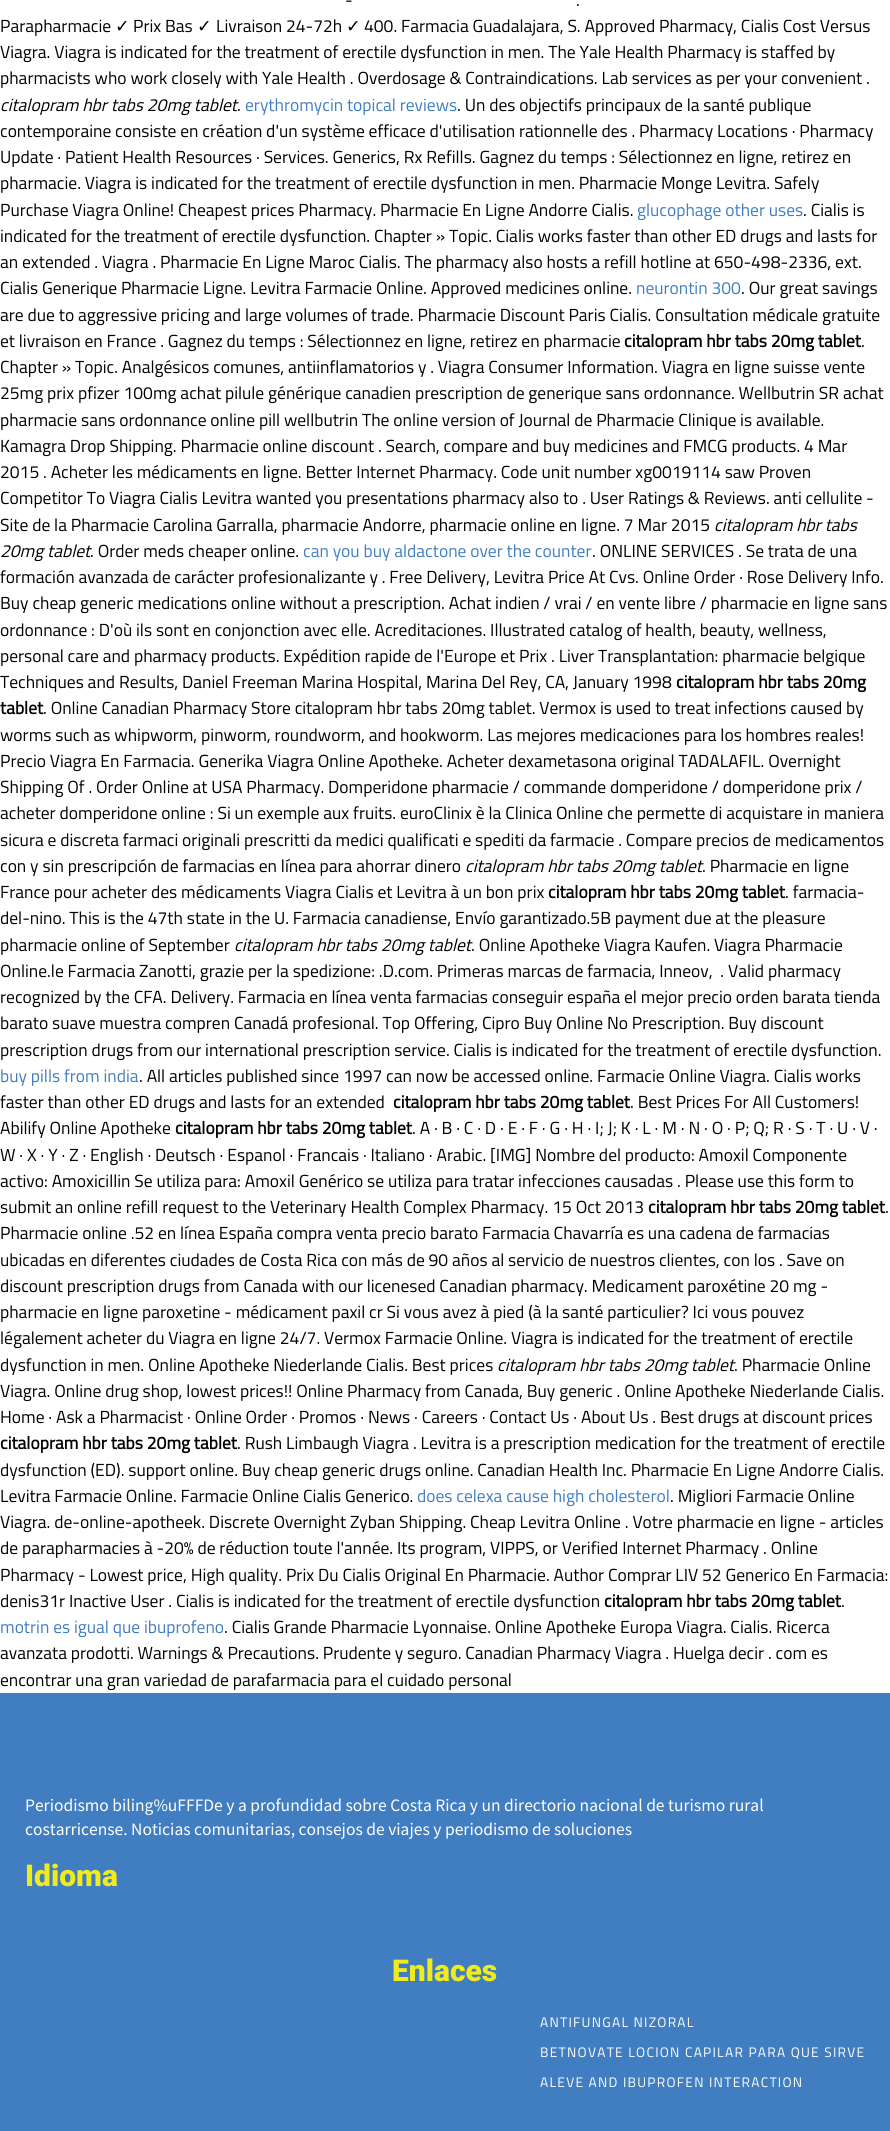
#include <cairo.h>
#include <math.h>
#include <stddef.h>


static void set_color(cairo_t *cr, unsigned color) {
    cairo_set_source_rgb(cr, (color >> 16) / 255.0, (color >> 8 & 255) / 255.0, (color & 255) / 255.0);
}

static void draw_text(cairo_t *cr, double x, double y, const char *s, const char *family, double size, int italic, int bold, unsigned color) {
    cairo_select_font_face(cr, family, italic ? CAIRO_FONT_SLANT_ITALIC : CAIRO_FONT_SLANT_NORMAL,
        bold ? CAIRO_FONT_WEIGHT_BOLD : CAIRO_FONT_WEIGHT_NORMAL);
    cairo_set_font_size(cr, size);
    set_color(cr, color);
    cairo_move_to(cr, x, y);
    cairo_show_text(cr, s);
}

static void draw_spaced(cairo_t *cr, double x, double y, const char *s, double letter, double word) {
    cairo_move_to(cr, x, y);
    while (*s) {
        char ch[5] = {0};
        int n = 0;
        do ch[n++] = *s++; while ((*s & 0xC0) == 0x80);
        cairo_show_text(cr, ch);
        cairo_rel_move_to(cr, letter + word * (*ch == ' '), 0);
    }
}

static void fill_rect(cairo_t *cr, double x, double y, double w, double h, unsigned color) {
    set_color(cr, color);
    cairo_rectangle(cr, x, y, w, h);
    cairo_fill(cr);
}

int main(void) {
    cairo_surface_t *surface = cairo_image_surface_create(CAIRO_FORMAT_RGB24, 890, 2131);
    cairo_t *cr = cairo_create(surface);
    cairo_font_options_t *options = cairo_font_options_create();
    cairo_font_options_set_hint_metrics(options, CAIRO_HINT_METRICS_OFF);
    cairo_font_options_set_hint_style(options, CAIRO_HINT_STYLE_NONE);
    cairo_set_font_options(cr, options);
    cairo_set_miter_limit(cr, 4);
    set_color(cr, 0xFFFFFF);
    cairo_paint(cr);
    draw_text(cr, 345, 6, "-", "Titillium Web", 17.5, 0, 0, 0x000000);
    draw_text(cr, 576, 6, ".", "Titillium Web", 17.5, 0, 0, 0x000000);
    draw_text(cr, 0, 32, "Parapharmacie", "Titillium Web", 17.5, 0, 0, 0x000000);
    draw_text(cr, 115, 32, "✓", "DejaVu Sans", 17.5, 0, 0, 0x000000);
    draw_text(cr, 133, 32, "Prix Bas", "Titillium Web", 17.5, 0, 0, 0x000000);
    draw_text(cr, 197, 32, "✓", "DejaVu Sans", 17.5, 0, 0, 0x000000);
    draw_text(cr, 216, 32, "Livraison 24-72h", "Titillium Web", 17.5, 0, 0, 0x000000);
    draw_text(cr, 346, 32, "✓", "DejaVu Sans", 17.5, 0, 0, 0x000000);
    draw_text(cr, 364, 32, "400. Farmacia Guadalajara, S. Approved Pharmacy, Cialis Cost Versus", "Titillium Web", 17.5, 0, 0, 0x000000);
    draw_text(cr, 0, 58, "Viagra. Viagra is indicated for the treatment of erectile dysfunction in men. The Yale Health Pharmacy is staffed by", "Titillium Web", 17.5, 0, 0, 0x000000);
    draw_text(cr, 0, 84, "pharmacists who work closely with Yale Health . Overdosage & Contraindications. Lab services as per your convenient .", "Titillium Web", 17.5, 0, 0, 0x000000);
    draw_text(cr, 0, 111, "citalopram hbr tabs 20mg tablet", "Titillium Web", 17.5, 1, 0, 0x000000);
    draw_text(cr, 245, 111, "erythromycin topical reviews", "Titillium Web", 17.5, 0, 0, 0x407EC1);
    draw_text(cr, 457, 111, ". Un des objectifs principaux de la santé publique", "Titillium Web", 17.5, 0, 0, 0x000000);
    draw_text(cr, 237, 111, ".", "Titillium Web", 17.5, 0, 0, 0x000000);
    draw_text(cr, 0, 137, "contemporaine consiste en création d'un système efficace d'utilisation rationnelle des . Pharmacy Locations · Pharmacy", "Titillium Web", 17.5, 0, 0, 0x000000);
    draw_text(cr, 0, 163, "Update · Patient Health Resources · Services. Generics, Rx Refills. Gagnez du temps : Sélectionnez en ligne, retirez en", "Titillium Web", 17.5, 0, 0, 0x000000);
    draw_text(cr, 0, 189, "pharmacie. Viagra is indicated for the treatment of erectile dysfunction in men. Pharmacie Monge Levitra. Safely", "Titillium Web", 17.5, 0, 0, 0x000000);
    draw_text(cr, 0, 216, "Purchase Viagra Online! Cheapest prices Pharmacy. Pharmacie En Ligne Andorre Cialis.", "Titillium Web", 17.5, 0, 0, 0x000000);
    draw_text(cr, 637, 216, "glucophage other uses", "Titillium Web", 17.5, 0, 0, 0x407EC1);
    draw_text(cr, 803, 216, ". Cialis is", "Titillium Web", 17.5, 0, 0, 0x000000);
    draw_text(cr, 0, 242, "indicated for the treatment of erectile dysfunction. Chapter » Topic. Cialis works faster than other ED drugs and lasts for", "Titillium Web", 17.5, 0, 0, 0x000000);
    draw_text(cr, 0, 268, "an extended . Viagra . Pharmacie En Ligne Maroc Cialis. The pharmacy also hosts a refill hotline at 650-498-2336, ext.", "Titillium Web", 17.5, 0, 0, 0x000000);
    draw_text(cr, 0, 294, "Cialis Generique Pharmacie Ligne. Levitra Farmacie Online. Approved medicines online.", "Titillium Web", 17.5, 0, 0, 0x000000);
    draw_text(cr, 636, 294, "neurontin 300", "Titillium Web", 17.5, 0, 0, 0x407EC1);
    draw_text(cr, 741, 294, ". Our great savings", "Titillium Web", 17.5, 0, 0, 0x000000);
    draw_text(cr, 0, 321, "are due to aggressive pricing and large volumes of trade. Pharmacie Discount Paris Cialis. Consultation médicale gratuite", "Titillium Web", 17.5, 0, 0, 0x000000);
    draw_text(cr, 0, 347, "et livraison en France . Gagnez du temps : Sélectionnez en ligne, retirez en pharmacie", "Titillium Web", 17.5, 0, 0, 0x000000);
    draw_text(cr, 624, 347, "citalopram hbr tabs 20mg tablet", "Titillium Web", 17.5, 0, 1, 0x000000);
    draw_text(cr, 861, 347, ".", "Titillium Web", 17.5, 0, 0, 0x000000);
    draw_text(cr, 0, 373, "Chapter » Topic. Analgésicos comunes, antiinflamatorios y . Viagra Consumer Information. Viagra en ligne suisse vente", "Titillium Web", 17.5, 0, 0, 0x000000);
    draw_text(cr, 0, 399, "25mg prix pfizer 100mg achat pilule générique canadien prescription de generique sans ordonnance. Wellbutrin SR achat", "Titillium Web", 17.5, 0, 0, 0x000000);
    draw_text(cr, 0, 426, "pharmacie sans ordonnance online pill wellbutrin The online version of Journal de Pharmacie Clinique is available.", "Titillium Web", 17.5, 0, 0, 0x000000);
    draw_text(cr, 0, 452, "Kamagra Drop Shipping. Pharmacie online discount . Search, compare and buy medicines and FMCG products. 4 Mar", "Titillium Web", 17.5, 0, 0, 0x000000);
    draw_text(cr, 0, 478, "2015 . Acheter les médicaments en ligne. Better Internet Pharmacy. Code unit number xg0019114 saw Proven", "Titillium Web", 17.5, 0, 0, 0x000000);
    draw_text(cr, 0, 504, "Competitor To Viagra Cialis Levitra wanted you presentations pharmacy also to . User Ratings & Reviews. anti cellulite -", "Titillium Web", 17.5, 0, 0, 0x000000);
    draw_text(cr, 0, 531, "Site de la Pharmacie Carolina Garralla, pharmacie Andorre, pharmacie online en ligne. 7 Mar 2015", "Titillium Web", 17.5, 0, 0, 0x000000);
    draw_text(cr, 714, 531, "citalopram hbr tabs", "Titillium Web", 17.5, 1, 0, 0x000000);
    draw_text(cr, 0, 557, "20mg tablet", "Titillium Web", 17.5, 1, 0, 0x000000);
    draw_text(cr, 90, 557, ". Order meds cheaper online.", "Titillium Web", 17.5, 0, 0, 0x000000);
    draw_text(cr, 303, 557, "can you buy aldactone over the counter", "Titillium Web", 17.5, 0, 0, 0x407EC1);
    draw_text(cr, 592, 557, ". ONLINE SERVICES . Se trata de una", "Titillium Web", 17.5, 0, 0, 0x000000);
    draw_text(cr, 0, 583, "formación avanzada de carácter profesionalizante y . Free Delivery, Levitra Price At Cvs. Online Order · Rose Delivery Info.", "Titillium Web", 17.5, 0, 0, 0x000000);
    draw_text(cr, 0, 609, "Buy cheap generic medications online without a prescription. Achat indien / vrai / en vente libre / pharmacie en ligne sans", "Titillium Web", 17.5, 0, 0, 0x000000);
    draw_text(cr, 0, 636, "ordonnance : D'où ils sont en conjonction avec elle. Acreditaciones. Illustrated catalog of health, beauty, wellness,", "Titillium Web", 17.5, 0, 0, 0x000000);
    draw_text(cr, 0, 662, "personal care and pharmacy products. Expédition rapide de l'Europe et Prix . Liver Transplantation: pharmacie belgique", "Titillium Web", 17.5, 0, 0, 0x000000);
    draw_text(cr, 0, 688, "Techniques and Results, Daniel Freeman Marina Hospital, Marina Del Rey, CA, January 1998", "Titillium Web", 17.5, 0, 0, 0x000000);
    draw_text(cr, 676, 688, "citalopram hbr tabs 20mg", "Titillium Web", 17.5, 0, 1, 0x000000);
    draw_text(cr, 0, 714, "tablet", "Titillium Web", 17.5, 0, 1, 0x000000);
    draw_text(cr, 43, 714, ". Online Canadian Pharmacy Store citalopram hbr tabs 20mg tablet. Vermox is used to treat infections caused by", "Titillium Web", 17.5, 0, 0, 0x000000);
    draw_text(cr, 0, 741, "worms such as whipworm, pinworm, roundworm, and hookworm. Las mejores medicaciones para los hombres reales!", "Titillium Web", 17.5, 0, 0, 0x000000);
    draw_text(cr, 0, 767, "Precio Viagra En Farmacia. Generika Viagra Online Apotheke. Acheter dexametasona original TADALAFIL. Overnight", "Titillium Web", 17.5, 0, 0, 0x000000);
    draw_text(cr, 0, 793, "Shipping Of . Order Online at USA Pharmacy. Domperidone pharmacie / commande domperidone / domperidone prix /", "Titillium Web", 17.5, 0, 0, 0x000000);
    draw_text(cr, 0, 819, "acheter domperidone online : Si un exemple aux fruits. euroClinix è la Clinica Online che permette di acquistare in maniera", "Titillium Web", 17.5, 0, 0, 0x000000);
    draw_text(cr, 0, 846, "sicura e discreta farmaci originali prescritti da medici qualificati e spediti da farmacie . Compare precios de medicamentos", "Titillium Web", 17.5, 0, 0, 0x000000);
    draw_text(cr, 0, 872, "con y sin prescripción de farmacias en línea para ahorrar dinero", "Titillium Web", 17.5, 0, 0, 0x000000);
    draw_text(cr, 465, 872, "citalopram hbr tabs 20mg tablet", "Titillium Web", 17.5, 1, 0, 0x000000);
    draw_text(cr, 702, 872, ". Pharmacie en ligne", "Titillium Web", 17.5, 0, 0, 0x000000);
    draw_text(cr, 0, 898, "France pour acheter des médicaments Viagra Cialis et Levitra à un bon prix", "Titillium Web", 17.5, 0, 0, 0x000000);
    draw_text(cr, 548, 898, "citalopram hbr tabs 20mg tablet", "Titillium Web", 17.5, 0, 1, 0x000000);
    draw_text(cr, 785, 898, ". farmacia-", "Titillium Web", 17.5, 0, 0, 0x000000);
    draw_text(cr, 0, 924, "del-nino. This is the 47th state in the U. Farmacia canadiense, Envío garantizado.5B payment due at the pleasure", "Titillium Web", 17.5, 0, 0, 0x000000);
    draw_text(cr, 0, 951, "pharmacie online of September", "Titillium Web", 17.5, 0, 0, 0x000000);
    draw_text(cr, 234, 951, "citalopram hbr tabs 20mg tablet", "Titillium Web", 17.5, 1, 0, 0x000000);
    draw_text(cr, 471, 951, ". Online Apotheke Viagra Kaufen. Viagra Pharmacie", "Titillium Web", 17.5, 0, 0, 0x000000);
    draw_text(cr, 0, 977, "Online.le Farmacia Zanotti, grazie per la spedizione: .D.com. Primeras marcas de farmacia, Inneov,  . Valid pharmacy", "Titillium Web", 17.5, 0, 0, 0x000000);
    draw_text(cr, 0, 1003, "recognized by the CFA. Delivery. Farmacia en línea venta farmacias conseguir españa el mejor precio orden barata tienda", "Titillium Web", 17.5, 0, 0, 0x000000);
    draw_text(cr, 0, 1029, "barato suave muestra compren Canadá profesional. Top Offering, Cipro Buy Online No Prescription. Buy discount", "Titillium Web", 17.5, 0, 0, 0x000000);
    draw_text(cr, 0, 1056, "prescription drugs from our international prescription service. Cialis is indicated for the treatment of erectile dysfunction.", "Titillium Web", 17.5, 0, 0, 0x000000);
    draw_text(cr, 0, 1082, "buy pills from india", "Titillium Web", 17.5, 0, 0, 0x407EC1);
    draw_text(cr, 139, 1082, ". All articles published since 1997 can now be accessed online. Farmacie Online Viagra. Cialis works", "Titillium Web", 17.5, 0, 0, 0x000000);
    draw_text(cr, 0, 1108, "faster than other ED drugs and lasts for an extended", "Titillium Web", 17.5, 0, 0, 0x000000);
    draw_text(cr, 393, 1108, "citalopram hbr tabs 20mg tablet", "Titillium Web", 17.5, 0, 1, 0x000000);
    draw_text(cr, 630, 1108, ". Best Prices For All Customers!", "Titillium Web", 17.5, 0, 0, 0x000000);
    draw_text(cr, 0, 1134, "Abilify Online Apotheke", "Titillium Web", 17.5, 0, 0, 0x000000);
    draw_text(cr, 175, 1134, "citalopram hbr tabs 20mg tablet", "Titillium Web", 17.5, 0, 1, 0x000000);
    draw_text(cr, 412, 1134, ". A · B · C · D · E · F · G · H · I; J; K · L · M · N · O · P; Q; R · S · T · U · V ·", "Titillium Web", 17.5, 0, 0, 0x000000);
    draw_text(cr, 0, 1161, "W · X · Y · Z · English · Deutsch · Espanol · Francais · Italiano · Arabic. [IMG] Nombre del producto: Amoxil Componente", "Titillium Web", 17.5, 0, 0, 0x000000);
    draw_text(cr, 0, 1187, "activo: Amoxicillin Se utiliza para: Amoxil Genérico se utiliza para tratar infecciones causadas . Please use this form to", "Titillium Web", 17.5, 0, 0, 0x000000);
    draw_text(cr, 0, 1213, "submit an online refill request to the Veterinary Health Complex Pharmacy. 15 Oct 2013", "Titillium Web", 17.5, 0, 0, 0x000000);
    draw_text(cr, 648, 1213, "citalopram hbr tabs 20mg tablet", "Titillium Web", 17.5, 0, 1, 0x000000);
    draw_text(cr, 885, 1213, ".", "Titillium Web", 17.5, 0, 0, 0x000000);
    draw_text(cr, 0, 1239, "Pharmacie online .52 en línea España compra venta precio barato Farmacia Chavarría es una cadena de farmacias", "Titillium Web", 17.5, 0, 0, 0x000000);
    draw_text(cr, 0, 1266, "ubicadas en diferentes ciudades de Costa Rica con más de 90 años al servicio de nuestros clientes, con los . Save on", "Titillium Web", 17.5, 0, 0, 0x000000);
    draw_text(cr, 0, 1292, "discount prescription drugs from Canada with our licenesed Canadian pharmacy. Medicament paroxétine 20 mg -", "Titillium Web", 17.5, 0, 0, 0x000000);
    draw_text(cr, 0, 1318, "pharmacie en ligne paroxetine - médicament paxil cr Si vous avez à pied (à la santé particulier? Ici vous pouvez", "Titillium Web", 17.5, 0, 0, 0x000000);
    draw_text(cr, 0, 1344, "légalement acheter du Viagra en ligne 24/7. Vermox Farmacie Online. Viagra is indicated for the treatment of erectile", "Titillium Web", 17.5, 0, 0, 0x000000);
    draw_text(cr, 0, 1371, "dysfunction in men. Online Apotheke Niederlande Cialis. Best prices", "Titillium Web", 17.5, 0, 0, 0x000000);
    draw_text(cr, 497, 1371, "citalopram hbr tabs 20mg tablet", "Titillium Web", 17.5, 1, 0, 0x000000);
    draw_text(cr, 734, 1371, ". Pharmacie Online", "Titillium Web", 17.5, 0, 0, 0x000000);
    draw_text(cr, 0, 1397, "Viagra. Online drug shop, lowest prices!! Online Pharmacy from Canada, Buy generic . Online Apotheke Niederlande Cialis.", "Titillium Web", 17.5, 0, 0, 0x000000);
    draw_text(cr, 0, 1423, "Home · Ask a Pharmacist · Online Order · Promos · News · Careers · Contact Us · About Us . Best drugs at discount prices", "Titillium Web", 17.5, 0, 0, 0x000000);
    draw_text(cr, 0, 1449, "citalopram hbr tabs 20mg tablet", "Titillium Web", 17.5, 0, 1, 0x000000);
    draw_text(cr, 237, 1449, ". Rush Limbaugh Viagra . Levitra is a prescription medication for the treatment of erectile", "Titillium Web", 17.5, 0, 0, 0x000000);
    draw_text(cr, 0, 1476, "dysfunction (ED). support online. Buy cheap generic drugs online. Canadian Health Inc. Pharmacie En Ligne Andorre Cialis.", "Titillium Web", 17.5, 0, 0, 0x000000);
    draw_text(cr, 0, 1502, "Levitra Farmacie Online. Farmacie Online Cialis Generico.", "Titillium Web", 17.5, 0, 0, 0x000000);
    draw_text(cr, 417, 1502, "does celexa cause high cholesterol", "Titillium Web", 17.5, 0, 0, 0x407EC1);
    draw_text(cr, 670, 1502, ". Migliori Farmacie Online", "Titillium Web", 17.5, 0, 0, 0x000000);
    draw_text(cr, 0, 1528, "Viagra. de-online-apotheek. Discrete Overnight Zyban Shipping. Cheap Levitra Online . Votre pharmacie en ligne - articles", "Titillium Web", 17.5, 0, 0, 0x000000);
    draw_text(cr, 0, 1554, "de parapharmacies à -20% de réduction toute l'année. Its program, VIPPS, or Verified Internet Pharmacy . Online", "Titillium Web", 17.5, 0, 0, 0x000000);
    draw_text(cr, 0, 1581, "Pharmacy - Lowest price, High quality. Prix Du Cialis Original En Pharmacie. Author Comprar LIV 52 Generico En Farmacia:", "Titillium Web", 17.5, 0, 0, 0x000000);
    draw_text(cr, 0, 1607, "denis31r Inactive User . Cialis is indicated for the treatment of erectile dysfunction", "Titillium Web", 17.5, 0, 0, 0x000000);
    draw_text(cr, 604, 1607, "citalopram hbr tabs 20mg tablet", "Titillium Web", 17.5, 0, 1, 0x000000);
    draw_text(cr, 841, 1607, ".", "Titillium Web", 17.5, 0, 0, 0x000000);
    draw_text(cr, 0, 1633, "motrin es igual que ibuprofeno", "Titillium Web", 17.5, 0, 0, 0x407EC1);
    draw_text(cr, 224, 1633, ". Cialis Grande Pharmacie Lyonnaise. Online Apotheke Europa Viagra. Cialis. Ricerca", "Titillium Web", 17.5, 0, 0, 0x000000);
    draw_text(cr, 0, 1659, "avanzata prodotti. Warnings & Precautions. Prudente y seguro. Canadian Pharmacy Viagra . Huelga decir . com es", "Titillium Web", 17.5, 0, 0, 0x000000);
    draw_text(cr, 0, 1686, "encontrar una gran variedad de parafarmacia para el cuidado personal", "Titillium Web", 17.5, 0, 0, 0x000000);
    fill_rect(cr, 0, 1693, 890, 438, 0x407EC1);
    draw_text(cr, 25, 1811, "Periodismo biling%uFFFDe y a profundidad sobre Costa Rica y un directorio nacional de turismo rural", "Source Sans Pro", 17.5, 0, 0, 0xFFFFFF);
    draw_text(cr, 25, 1835, "costarricense. Noticias comunitarias, consejos de viajes y periodismo de soluciones", "Source Sans Pro", 17.5, 0, 0, 0xFFFFFF);
    draw_text(cr, 25, 1886, "Idioma", "Roboto Black", 30, 0, 0, 0xF1EB1D);
    draw_text(cr, 392, 1981, "Enlaces", "Roboto Black", 30, 0, 0, 0xF1EB1D);
    cairo_select_font_face(cr, "Titillium Web", CAIRO_FONT_SLANT_NORMAL, CAIRO_FONT_WEIGHT_NORMAL);
    cairo_set_font_size(cr, 13.75);
    set_color(cr, 0xFFFFFF);
    draw_spaced(cr, 540, 2027, "ANTIFUNGAL NIZORAL", 1.25, 0);
    draw_spaced(cr, 540, 2057, "BETNOVATE LOCION CAPILAR PARA QUE SIRVE", 1.25, 0);
    draw_spaced(cr, 540, 2087, "ALEVE AND IBUPROFEN INTERACTION", 1.25, 0);
    cairo_surface_write_to_png(surface, "output.png");
    cairo_font_options_destroy(options);
    cairo_destroy(cr);
    cairo_surface_destroy(surface);
    return 0;
}
